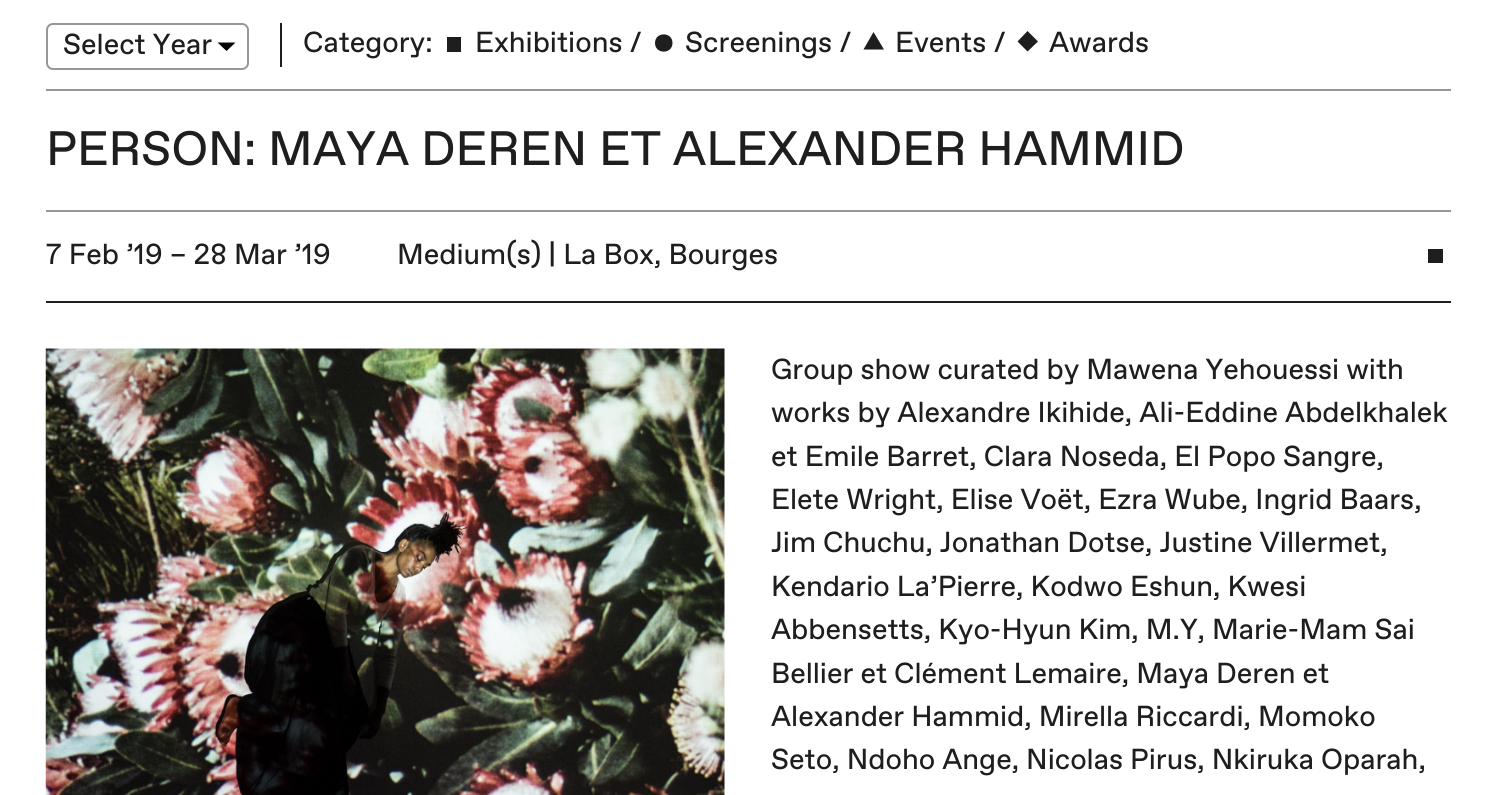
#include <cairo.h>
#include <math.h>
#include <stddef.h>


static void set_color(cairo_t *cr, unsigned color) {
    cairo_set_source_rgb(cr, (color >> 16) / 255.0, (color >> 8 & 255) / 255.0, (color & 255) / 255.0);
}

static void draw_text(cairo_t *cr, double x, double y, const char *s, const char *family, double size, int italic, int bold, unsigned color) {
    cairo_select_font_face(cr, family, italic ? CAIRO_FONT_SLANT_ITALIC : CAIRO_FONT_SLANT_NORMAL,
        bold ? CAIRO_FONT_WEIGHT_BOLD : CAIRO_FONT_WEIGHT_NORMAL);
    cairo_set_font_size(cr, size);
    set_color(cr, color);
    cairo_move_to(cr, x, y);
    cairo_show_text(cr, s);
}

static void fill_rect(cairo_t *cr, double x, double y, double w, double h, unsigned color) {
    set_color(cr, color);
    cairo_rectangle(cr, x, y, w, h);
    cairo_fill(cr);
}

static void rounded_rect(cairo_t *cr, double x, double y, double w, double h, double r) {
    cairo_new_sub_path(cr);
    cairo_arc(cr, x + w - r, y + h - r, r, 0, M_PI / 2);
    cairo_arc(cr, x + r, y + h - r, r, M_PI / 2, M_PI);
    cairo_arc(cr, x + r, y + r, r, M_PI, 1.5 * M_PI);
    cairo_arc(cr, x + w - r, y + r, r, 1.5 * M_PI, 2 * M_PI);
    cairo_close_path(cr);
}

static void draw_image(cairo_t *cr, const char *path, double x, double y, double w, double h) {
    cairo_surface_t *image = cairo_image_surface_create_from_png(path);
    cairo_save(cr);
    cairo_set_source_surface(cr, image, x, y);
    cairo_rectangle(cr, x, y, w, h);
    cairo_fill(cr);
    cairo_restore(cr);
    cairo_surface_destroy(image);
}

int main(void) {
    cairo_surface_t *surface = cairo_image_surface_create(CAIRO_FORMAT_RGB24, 1496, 795);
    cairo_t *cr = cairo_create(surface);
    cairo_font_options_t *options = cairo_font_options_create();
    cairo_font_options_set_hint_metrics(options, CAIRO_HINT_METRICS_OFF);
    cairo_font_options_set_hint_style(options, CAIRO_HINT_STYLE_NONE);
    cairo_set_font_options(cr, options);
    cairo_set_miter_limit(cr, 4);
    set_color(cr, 0xFFFFFF);
    cairo_paint(cr);
    fill_rect(cr, 46, 89, 1405, 2, 0x979797);
    set_color(cr, 0x000000);
    cairo_new_path(cr);
    cairo_move_to(cr, 226.5, 51);
    cairo_line_to(cr, 217.5, 42.5);
    cairo_line_to(cr, 235.5, 42.5);
    cairo_close_path(cr);
    cairo_fill(cr);
    rounded_rect(cr, 47, 24, 201, 45, 6);
    set_color(cr, 0x979797);
    cairo_stroke(cr);
    draw_text(cr, 63, 54, "Select Year", "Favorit", 28.95, 0, 0, 0x1E1E1E);
    fill_rect(cr, 280, 23, 2, 44, 0x1E1E1E);
    draw_text(cr, 303, 52, "Category:", "Favorit", 28.95, 0, 0, 0x1E1E1E);
    fill_rect(cr, 447, 37, 14, 15, 0x1E1E1E);
    draw_text(cr, 475, 52, "Exhibitions /", "Favorit", 28.95, 0, 0, 0x1E1E1E);
    cairo_new_path(cr);
    cairo_move_to(cr, 672.5, 43);
    cairo_curve_to(cr, 672.5, 54.5, 655, 54.5, 655, 43);
    cairo_curve_to(cr, 655, 31.5, 672.5, 31.5, 672.5, 43);
    cairo_close_path(cr);
    cairo_fill(cr);
    draw_text(cr, 685, 52, "Screenings /", "Favorit", 28.95, 0, 0, 0x1E1E1E);
    cairo_new_path(cr);
    cairo_move_to(cr, 863.5, 49.5);
    cairo_line_to(cr, 873.5, 32);
    cairo_line_to(cr, 884, 49.5);
    cairo_close_path(cr);
    cairo_fill(cr);
    draw_text(cr, 895, 52, "Events /", "Favorit", 28.95, 0, 0, 0x1E1E1E);
    cairo_new_path(cr);
    cairo_move_to(cr, 1027.5, 31);
    cairo_line_to(cr, 1038, 41.5);
    cairo_line_to(cr, 1027.5, 51.5);
    cairo_line_to(cr, 1017.5, 41.5);
    cairo_close_path(cr);
    cairo_fill(cr);
    draw_text(cr, 1049, 52, "Awards", "Favorit", 28.95, 0, 0, 0x1E1E1E);
    fill_rect(cr, 46, 210, 1405, 2, 0x979797);
    draw_text(cr, 46, 165, "PERSON: MAYA DEREN ET ALEXANDER HAMMID", "Favorit", 48.25, 0, 0, 0x1E1E1E);
    fill_rect(cr, 46, 301, 1405, 2, 0x1E1E1E);
    draw_text(cr, 46, 264, "7 Feb ’19 – 28 Mar ’19", "Favorit", 28.95, 0, 0, 0x1E1E1E);
    draw_text(cr, 397, 264, "Medium(s) | La Box, Bourges", "Favorit", 28.95, 0, 0, 0x1E1E1E);
    fill_rect(cr, 1428, 249, 15, 14, 0x1E1E1E);
    draw_image(cr, "assets/img1.png", 45, 348, 680, 447);
    draw_text(cr, 771, 379, "Group show curated by Mawena Yehouessi with", "Favorit", 28.95, 0, 0, 0x1E1E1E);
    draw_text(cr, 771, 422, "works by Alexandre Ikihide, Ali-Eddine Abdelkhalek", "Favorit", 28.95, 0, 0, 0x1E1E1E);
    draw_text(cr, 771, 466, "et Emile Barret, Clara Noseda, El Popo Sangre,", "Favorit", 28.95, 0, 0, 0x1E1E1E);
    draw_text(cr, 771, 509, "Elete Wright, Elise Voët, Ezra Wube, Ingrid Baars,", "Favorit", 28.95, 0, 0, 0x1E1E1E);
    draw_text(cr, 771, 552, "Jim Chuchu, Jonathan Dotse, Justine Villermet,", "Favorit", 28.95, 0, 0, 0x1E1E1E);
    draw_text(cr, 771, 596, "Kendario La’Pierre, Kodwo Eshun, Kwesi", "Favorit", 28.95, 0, 0, 0x1E1E1E);
    draw_text(cr, 771, 639, "Abbensetts, Kyo-Hyun Kim, M.Y, Marie-Mam Sai", "Favorit", 28.95, 0, 0, 0x1E1E1E);
    draw_text(cr, 771, 683, "Bellier et Clément Lemaire, Maya Deren et", "Favorit", 28.95, 0, 0, 0x1E1E1E);
    draw_text(cr, 771, 726, "Alexander Hammid, Mirella Riccardi, Momoko", "Favorit", 28.95, 0, 0, 0x1E1E1E);
    draw_text(cr, 771, 769, "Seto, Ndoho Ange, Nicolas Pirus, Nkiruka Oparah,", "Favorit", 28.95, 0, 0, 0x1E1E1E);
    cairo_surface_write_to_png(surface, "output.png");
    cairo_font_options_destroy(options);
    cairo_destroy(cr);
    cairo_surface_destroy(surface);
    return 0;
}
